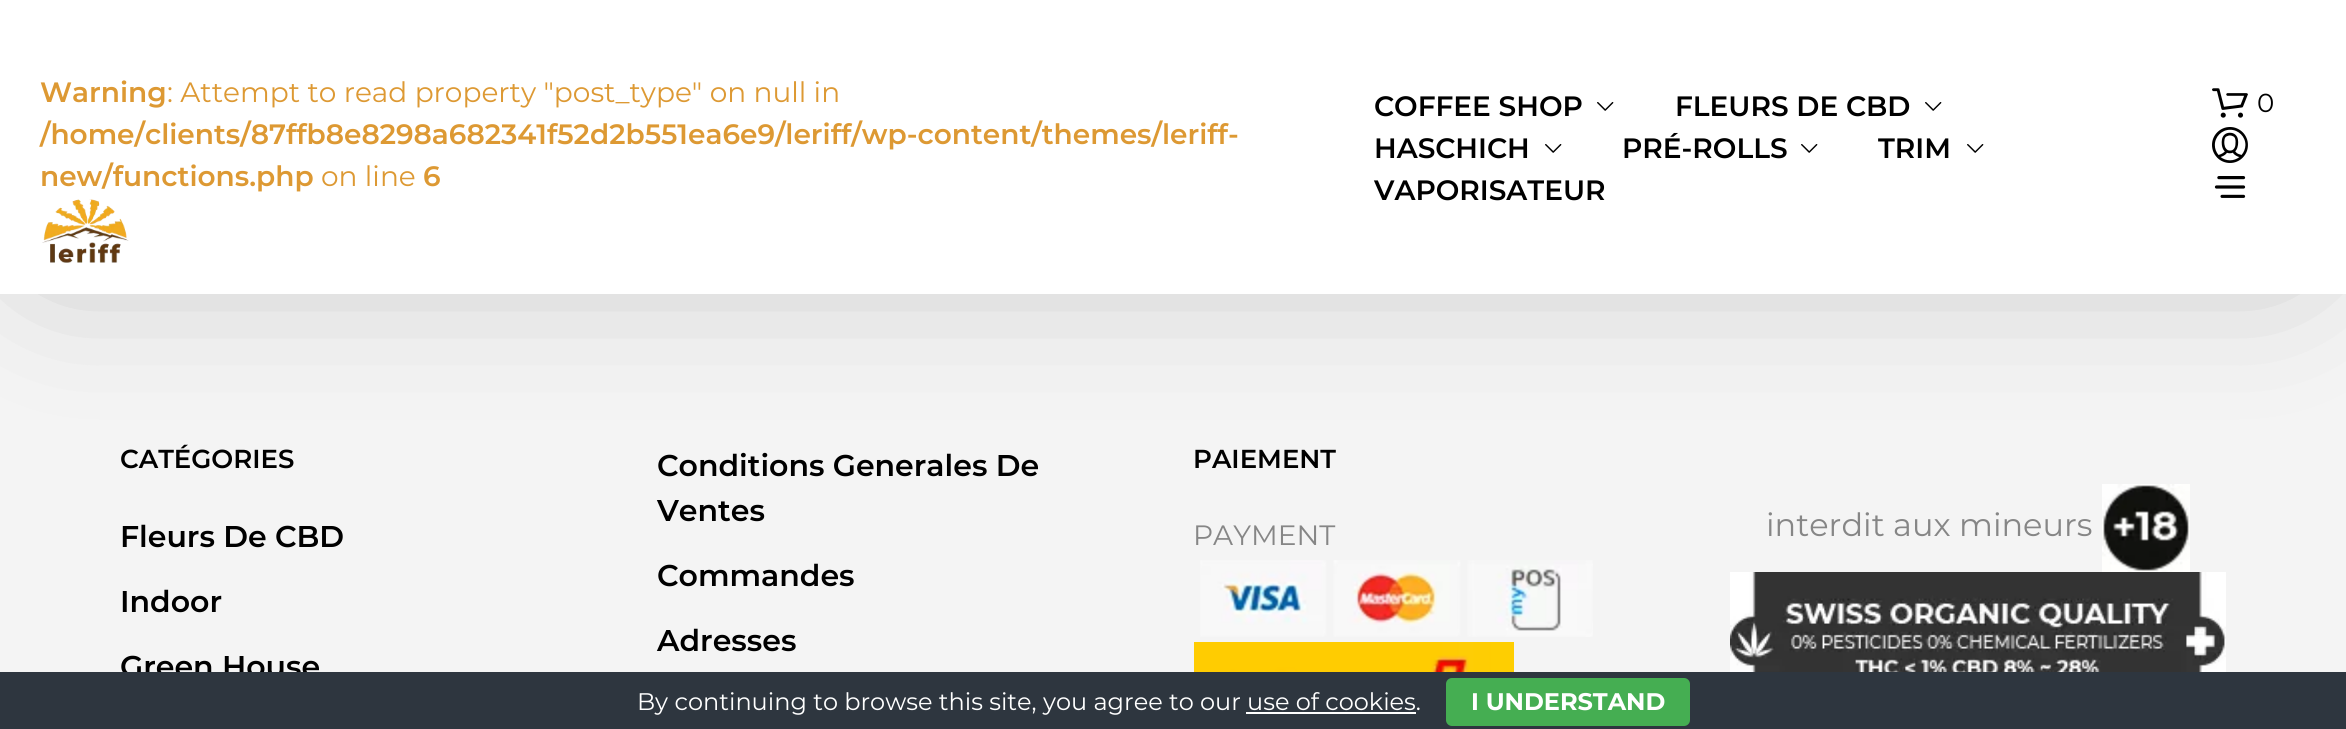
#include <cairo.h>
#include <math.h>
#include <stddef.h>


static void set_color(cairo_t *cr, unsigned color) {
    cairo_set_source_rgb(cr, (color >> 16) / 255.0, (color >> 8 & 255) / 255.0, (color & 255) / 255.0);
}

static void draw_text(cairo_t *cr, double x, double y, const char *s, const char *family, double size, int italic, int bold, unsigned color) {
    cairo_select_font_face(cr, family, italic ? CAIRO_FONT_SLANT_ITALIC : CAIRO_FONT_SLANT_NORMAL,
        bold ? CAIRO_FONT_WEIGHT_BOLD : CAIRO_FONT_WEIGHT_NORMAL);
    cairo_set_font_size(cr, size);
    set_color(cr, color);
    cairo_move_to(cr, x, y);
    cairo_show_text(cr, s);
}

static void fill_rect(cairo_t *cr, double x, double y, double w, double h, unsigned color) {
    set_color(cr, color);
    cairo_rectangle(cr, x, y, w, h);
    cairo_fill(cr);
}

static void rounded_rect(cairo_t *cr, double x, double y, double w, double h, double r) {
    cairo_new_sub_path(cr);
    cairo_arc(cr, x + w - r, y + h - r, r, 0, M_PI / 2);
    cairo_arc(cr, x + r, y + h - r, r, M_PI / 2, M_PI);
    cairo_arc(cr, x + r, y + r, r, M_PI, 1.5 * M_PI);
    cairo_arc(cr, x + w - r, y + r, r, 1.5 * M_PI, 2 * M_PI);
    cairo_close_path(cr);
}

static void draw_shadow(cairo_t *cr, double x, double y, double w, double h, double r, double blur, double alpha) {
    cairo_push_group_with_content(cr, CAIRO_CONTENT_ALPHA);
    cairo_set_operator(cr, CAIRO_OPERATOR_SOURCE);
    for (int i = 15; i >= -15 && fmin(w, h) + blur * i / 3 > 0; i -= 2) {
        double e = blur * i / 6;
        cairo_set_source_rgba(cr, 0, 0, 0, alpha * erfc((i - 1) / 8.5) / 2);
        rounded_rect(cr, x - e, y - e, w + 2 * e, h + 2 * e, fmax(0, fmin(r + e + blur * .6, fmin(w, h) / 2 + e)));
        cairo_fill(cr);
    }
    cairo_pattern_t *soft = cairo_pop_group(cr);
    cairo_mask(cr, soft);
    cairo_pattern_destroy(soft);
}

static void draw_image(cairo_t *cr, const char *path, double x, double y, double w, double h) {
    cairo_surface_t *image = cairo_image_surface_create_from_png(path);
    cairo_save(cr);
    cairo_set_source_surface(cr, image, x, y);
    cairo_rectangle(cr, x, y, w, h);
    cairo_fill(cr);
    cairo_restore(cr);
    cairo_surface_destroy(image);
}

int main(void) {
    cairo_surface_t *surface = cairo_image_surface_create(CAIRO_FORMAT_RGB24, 2346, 729);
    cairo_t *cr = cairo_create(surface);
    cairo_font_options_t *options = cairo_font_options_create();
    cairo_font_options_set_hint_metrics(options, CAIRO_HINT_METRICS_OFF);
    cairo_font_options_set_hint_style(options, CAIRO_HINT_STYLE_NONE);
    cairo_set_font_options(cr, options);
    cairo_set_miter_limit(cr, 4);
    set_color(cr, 0xF4F4F4);
    cairo_paint(cr);
    draw_image(cr, "assets/img8.png", 2102, 484, 88, 88);
    set_color(cr, 0x000000);
    draw_shadow(cr, 50, 56, 2238, 188, 0, 81, 0.29);
    fill_rect(cr, 0, 0, 2346, 294, 0xFFFFFF);
    draw_text(cr, 40, 102, "Warning", "Montserrat SemiBold", 28, 0, 0, 0xDD9933);
    draw_text(cr, 167, 102, ": Attempt to read property \"post_type\" on null in", "Montserrat", 28, 0, 0, 0xDD9933);
    draw_text(cr, 40, 144, "/home/clients/87ffb8e8298a682341f52d2b551ea6e9/leriff/wp-content/themes/leriff-", "Montserrat SemiBold", 28, 0, 0, 0xDD9933);
    draw_text(cr, 40, 186, "new/functions.php", "Montserrat SemiBold", 28, 0, 0, 0xDD9933);
    draw_text(cr, 321, 186, "on line", "Montserrat", 28, 0, 0, 0xDD9933);
    draw_text(cr, 423, 186, "6", "Montserrat SemiBold", 28, 0, 0, 0xDD9933);
    draw_image(cr, "assets/img1.png", 42, 199, 87, 64);
    draw_text(cr, 1374, 116, "COFFEE SHOP", "Montserrat SemiBold", 28, 0, 0, 0x000000);
    draw_image(cr, "assets/img2.png", 1597, 102, 17, 9);
    draw_text(cr, 1675, 116, "FLEURS DE CBD", "Montserrat SemiBold", 28, 0, 0, 0x000000);
    draw_image(cr, "assets/img2.png", 1925, 102, 17, 9);
    draw_text(cr, 1374, 158, "HASCHICH", "Montserrat SemiBold", 28, 0, 0, 0x000000);
    draw_image(cr, "assets/img2.png", 1545, 144, 17, 9);
    draw_text(cr, 1622, 158, "PRÉ-ROLLS", "Montserrat SemiBold", 28, 0, 0, 0x000000);
    draw_image(cr, "assets/img2.png", 1801, 144, 17, 9);
    draw_text(cr, 1878, 158, "TRIM", "Montserrat SemiBold", 28, 0, 0, 0x000000);
    draw_image(cr, "assets/img2.png", 1967, 144, 17, 9);
    draw_text(cr, 1374, 200, "VAPORISATEUR", "Montserrat SemiBold", 28, 0, 0, 0x000000);
    draw_image(cr, "assets/img3.png", 2212, 88, 36, 30);
    draw_text(cr, 2257, 112, "0", "Montserrat", 26, 0, 0, 0x000000);
    draw_image(cr, "assets/img4.png", 2212, 127, 36, 36);
    draw_image(cr, "assets/img5.png", 2214, 176, 32, 22);
    draw_text(cr, 120, 468, "CATÉGORIES", "Montserrat SemiBold", 26, 0, 0, 0x000000);
    draw_text(cr, 120, 547, "Fleurs De CBD", "Montserrat SemiBold", 30, 0, 0, 0x000000);
    draw_text(cr, 120, 612, "Indoor", "Montserrat SemiBold", 30, 0, 0, 0x000000);
    draw_text(cr, 120, 677, "Green House", "Montserrat SemiBold", 30, 0, 0, 0x000000);
    draw_text(cr, 657, 476, "Conditions Generales De", "Montserrat SemiBold", 30, 0, 0, 0x000000);
    draw_text(cr, 657, 521, "Ventes", "Montserrat SemiBold", 30, 0, 0, 0x000000);
    draw_text(cr, 657, 586, "Commandes", "Montserrat SemiBold", 30, 0, 0, 0x000000);
    draw_text(cr, 657, 651, "Adresses", "Montserrat SemiBold", 30, 0, 0, 0x000000);
    draw_text(cr, 1193, 468, "PAIEMENT", "Montserrat SemiBold", 26, 0, 0, 0x000000);
    draw_text(cr, 1193, 545, "PAYMENT", "Montserrat", 28, 0, 0, 0x868686);
    draw_image(cr, "assets/img6.png", 1200, 560, 393, 77);
    draw_image(cr, "assets/img7.png", 1194, 642, 320, 30);
    draw_text(cr, 1766, 536, "interdit aux mineurs", "Montserrat", 32, 0, 0, 0x868686);
    draw_image(cr, "assets/img9.png", 1730, 572, 496, 100);
    fill_rect(cr, 0, 672, 2346, 57, 0x2E363F);
    draw_text(cr, 637, 710, "By continuing to browse this site, you agree to our use of cookies.", "Montserrat", 24, 0, 0, 0xFFFFFF);
    set_color(cr, 0x45AE52);
    rounded_rect(cr, 1446, 678, 244, 48, 6);
    cairo_fill(cr);
    draw_text(cr, 1471, 710, "I UNDERSTAND", "Montserrat", 24, 0, 1, 0xFFFFFF);
    fill_rect(cr, 1246, 712, 170, 2, 0xFFFFFF);
    cairo_surface_write_to_png(surface, "output.png");
    cairo_font_options_destroy(options);
    cairo_destroy(cr);
    cairo_surface_destroy(surface);
    return 0;
}
